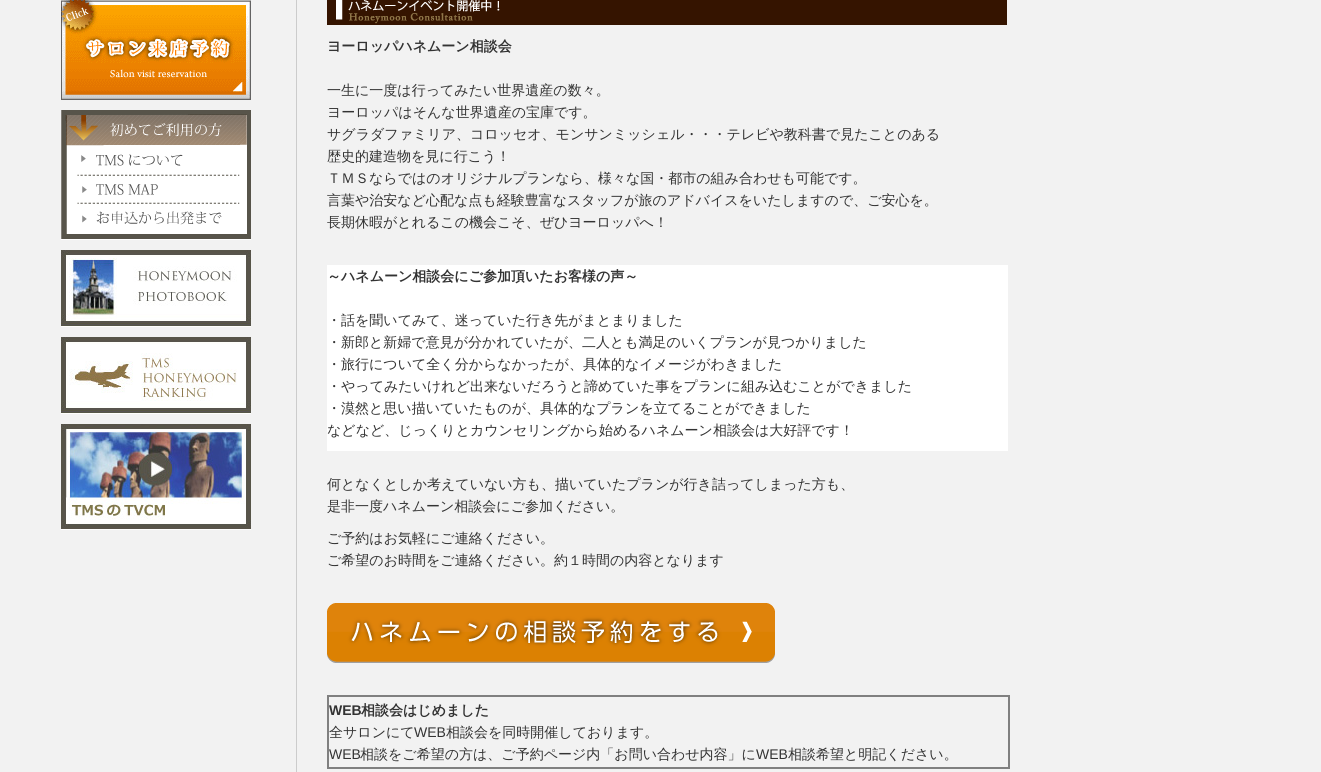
#include <cairo.h>
#include <math.h>
#include <stddef.h>


static void set_color(cairo_t *cr, unsigned color) {
    cairo_set_source_rgb(cr, (color >> 16) / 255.0, (color >> 8 & 255) / 255.0, (color & 255) / 255.0);
}

static void draw_text(cairo_t *cr, double x, double y, const char *s, const char *family, double size, int italic, int bold, unsigned color) {
    cairo_select_font_face(cr, family, italic ? CAIRO_FONT_SLANT_ITALIC : CAIRO_FONT_SLANT_NORMAL,
        bold ? CAIRO_FONT_WEIGHT_BOLD : CAIRO_FONT_WEIGHT_NORMAL);
    cairo_set_font_size(cr, size);
    set_color(cr, color);
    cairo_move_to(cr, x, y);
    cairo_show_text(cr, s);
}

static void fill_rect(cairo_t *cr, double x, double y, double w, double h, unsigned color) {
    set_color(cr, color);
    cairo_rectangle(cr, x, y, w, h);
    cairo_fill(cr);
}

static void draw_image(cairo_t *cr, const char *path, double x, double y, double w, double h) {
    cairo_surface_t *image = cairo_image_surface_create_from_png(path);
    cairo_save(cr);
    cairo_set_source_surface(cr, image, x, y);
    cairo_rectangle(cr, x, y, w, h);
    cairo_fill(cr);
    cairo_restore(cr);
    cairo_surface_destroy(image);
}

int main(void) {
    cairo_surface_t *surface = cairo_image_surface_create(CAIRO_FORMAT_RGB24, 1321, 772);
    cairo_t *cr = cairo_create(surface);
    cairo_font_options_t *options = cairo_font_options_create();
    cairo_font_options_set_hint_metrics(options, CAIRO_HINT_METRICS_OFF);
    cairo_font_options_set_hint_style(options, CAIRO_HINT_STYLE_NONE);
    cairo_set_font_options(cr, options);
    cairo_set_miter_limit(cr, 4);
    set_color(cr, 0xF2F2F2);
    cairo_paint(cr);
    draw_image(cr, "assets/img1.png", 61, 0, 190, 100);
    draw_image(cr, "assets/img2.png", 61, 110, 190, 130);
    draw_image(cr, "assets/img3.png", 61, 250, 190, 77);
    draw_image(cr, "assets/img4.png", 61, 337, 190, 77);
    draw_image(cr, "assets/img5.png", 61, 424, 190, 106);
    fill_rect(cr, 296, 0, 1, 772, 0xCCCCCC);
    draw_image(cr, "assets/img6.png", 327, 0, 680, 25);
    draw_text(cr, 327, 51, "ヨーロッパハネムーン相談会", "WenQuanYi Zen Hei", 14, 0, 1, 0x333333);
    draw_text(cr, 327, 95, "一生に一度は行ってみたい世界遺産の数々。", "WenQuanYi Zen Hei Medium", 14, 0, 0, 0x333333);
    draw_text(cr, 327, 117, "ヨーロッパはそんな世界遺産の宝庫です。", "WenQuanYi Zen Hei Medium", 14, 0, 0, 0x333333);
    draw_text(cr, 327, 139, "サグラダファミリア、コロッセオ、モンサンミッシェル・・・テレビや教科書で見たことのある", "WenQuanYi Zen Hei Medium", 14, 0, 0, 0x333333);
    draw_text(cr, 327, 161, "歴史的建造物を見に行こう！", "WenQuanYi Zen Hei Medium", 14, 0, 0, 0x333333);
    draw_text(cr, 327, 183, "ＴＭＳならではのオリジナルプランなら、様々な国・都市の組み合わせも可能です。", "WenQuanYi Zen Hei Medium", 14, 0, 0, 0x333333);
    draw_text(cr, 327, 205, "言葉や治安など心配な点も経験豊富なスタッフが旅のアドバイスをいたしますので、ご安心を。", "WenQuanYi Zen Hei Medium", 14, 0, 0, 0x333333);
    draw_text(cr, 327, 227, "長期休暇がとれるこの機会こそ、ぜひヨーロッパへ！", "WenQuanYi Zen Hei Medium", 14, 0, 0, 0x333333);
    fill_rect(cr, 327, 265, 681, 186, 0xFFFFFF);
    draw_text(cr, 327, 281, "～ハネムーン相談会にご参加頂いたお客様の声～", "WenQuanYi Zen Hei", 14, 0, 1, 0x333333);
    draw_text(cr, 327, 325, "・話を聞いてみて、迷っていた行き先がまとまりました", "WenQuanYi Zen Hei Medium", 14, 0, 0, 0x333333);
    draw_text(cr, 327, 347, "・新郎と新婦で意見が分かれていたが、二人とも満足のいくプランが見つかりました", "WenQuanYi Zen Hei Medium", 14, 0, 0, 0x333333);
    draw_text(cr, 327, 369, "・旅行について全く分からなかったが、具体的なイメージがわきました", "WenQuanYi Zen Hei Medium", 14, 0, 0, 0x333333);
    draw_text(cr, 327, 391, "・やってみたいけれど出来ないだろうと諦めていた事をプランに組み込むことができました", "WenQuanYi Zen Hei Medium", 14, 0, 0, 0x333333);
    draw_text(cr, 327, 413, "・漠然と思い描いていたものが、具体的なプランを立てることができました", "WenQuanYi Zen Hei Medium", 14, 0, 0, 0x333333);
    draw_text(cr, 327, 435, "などなど、じっくりとカウンセリングから始めるハネムーン相談会は大好評です！", "WenQuanYi Zen Hei Medium", 14, 0, 0, 0x333333);
    draw_text(cr, 327, 489, "何となくとしか考えていない方も、描いていたプランが行き詰ってしまった方も、", "WenQuanYi Zen Hei Medium", 14, 0, 0, 0x333333);
    draw_text(cr, 327, 511, "是非一度ハネムーン相談会にご参加ください。", "WenQuanYi Zen Hei Medium", 14, 0, 0, 0x333333);
    draw_text(cr, 327, 543, "ご予約はお気軽にご連絡ください。", "WenQuanYi Zen Hei Medium", 14, 0, 0, 0x333333);
    draw_text(cr, 327, 565, "ご希望のお時間をご連絡ください。約１時間の内容となります", "WenQuanYi Zen Hei Medium", 14, 0, 0, 0x333333);
    draw_image(cr, "assets/img7.png", 327, 603, 448, 60);
    fill_rect(cr, 327, 695, 683, 2, 0x808080);
    fill_rect(cr, 1008, 695, 2, 74, 0x808080);
    fill_rect(cr, 327, 767, 683, 2, 0x808080);
    fill_rect(cr, 327, 695, 2, 74, 0x808080);
    draw_text(cr, 329, 715, "WEB", "Liberation Sans", 14, 0, 1, 0x333333);
    draw_text(cr, 361, 715, "相談会はじめました", "WenQuanYi Zen Hei", 14, 0, 1, 0x333333);
    draw_text(cr, 329, 737, "全サロンにて", "WenQuanYi Zen Hei Medium", 14, 0, 0, 0x333333);
    draw_text(cr, 414, 737, "WEB", "Liberation Sans", 14, 0, 0, 0x333333);
    draw_text(cr, 446, 737, "相談会を同時開催しております。", "WenQuanYi Zen Hei Medium", 14, 0, 0, 0x333333);
    draw_text(cr, 329, 759, "WEB", "Liberation Sans", 14, 0, 0, 0x333333);
    draw_text(cr, 360, 759, "相談をご希望の方は、ご予約ページ内「お問い合わせ内容」に", "WenQuanYi Zen Hei Medium", 14, 0, 0, 0x333333);
    draw_text(cr, 756, 759, "WEB", "Liberation Sans", 14, 0, 0, 0x333333);
    draw_text(cr, 788, 759, "相談希望と明記ください。", "WenQuanYi Zen Hei Medium", 14, 0, 0, 0x333333);
    cairo_surface_write_to_png(surface, "output.png");
    cairo_font_options_destroy(options);
    cairo_destroy(cr);
    cairo_surface_destroy(surface);
    return 0;
}
